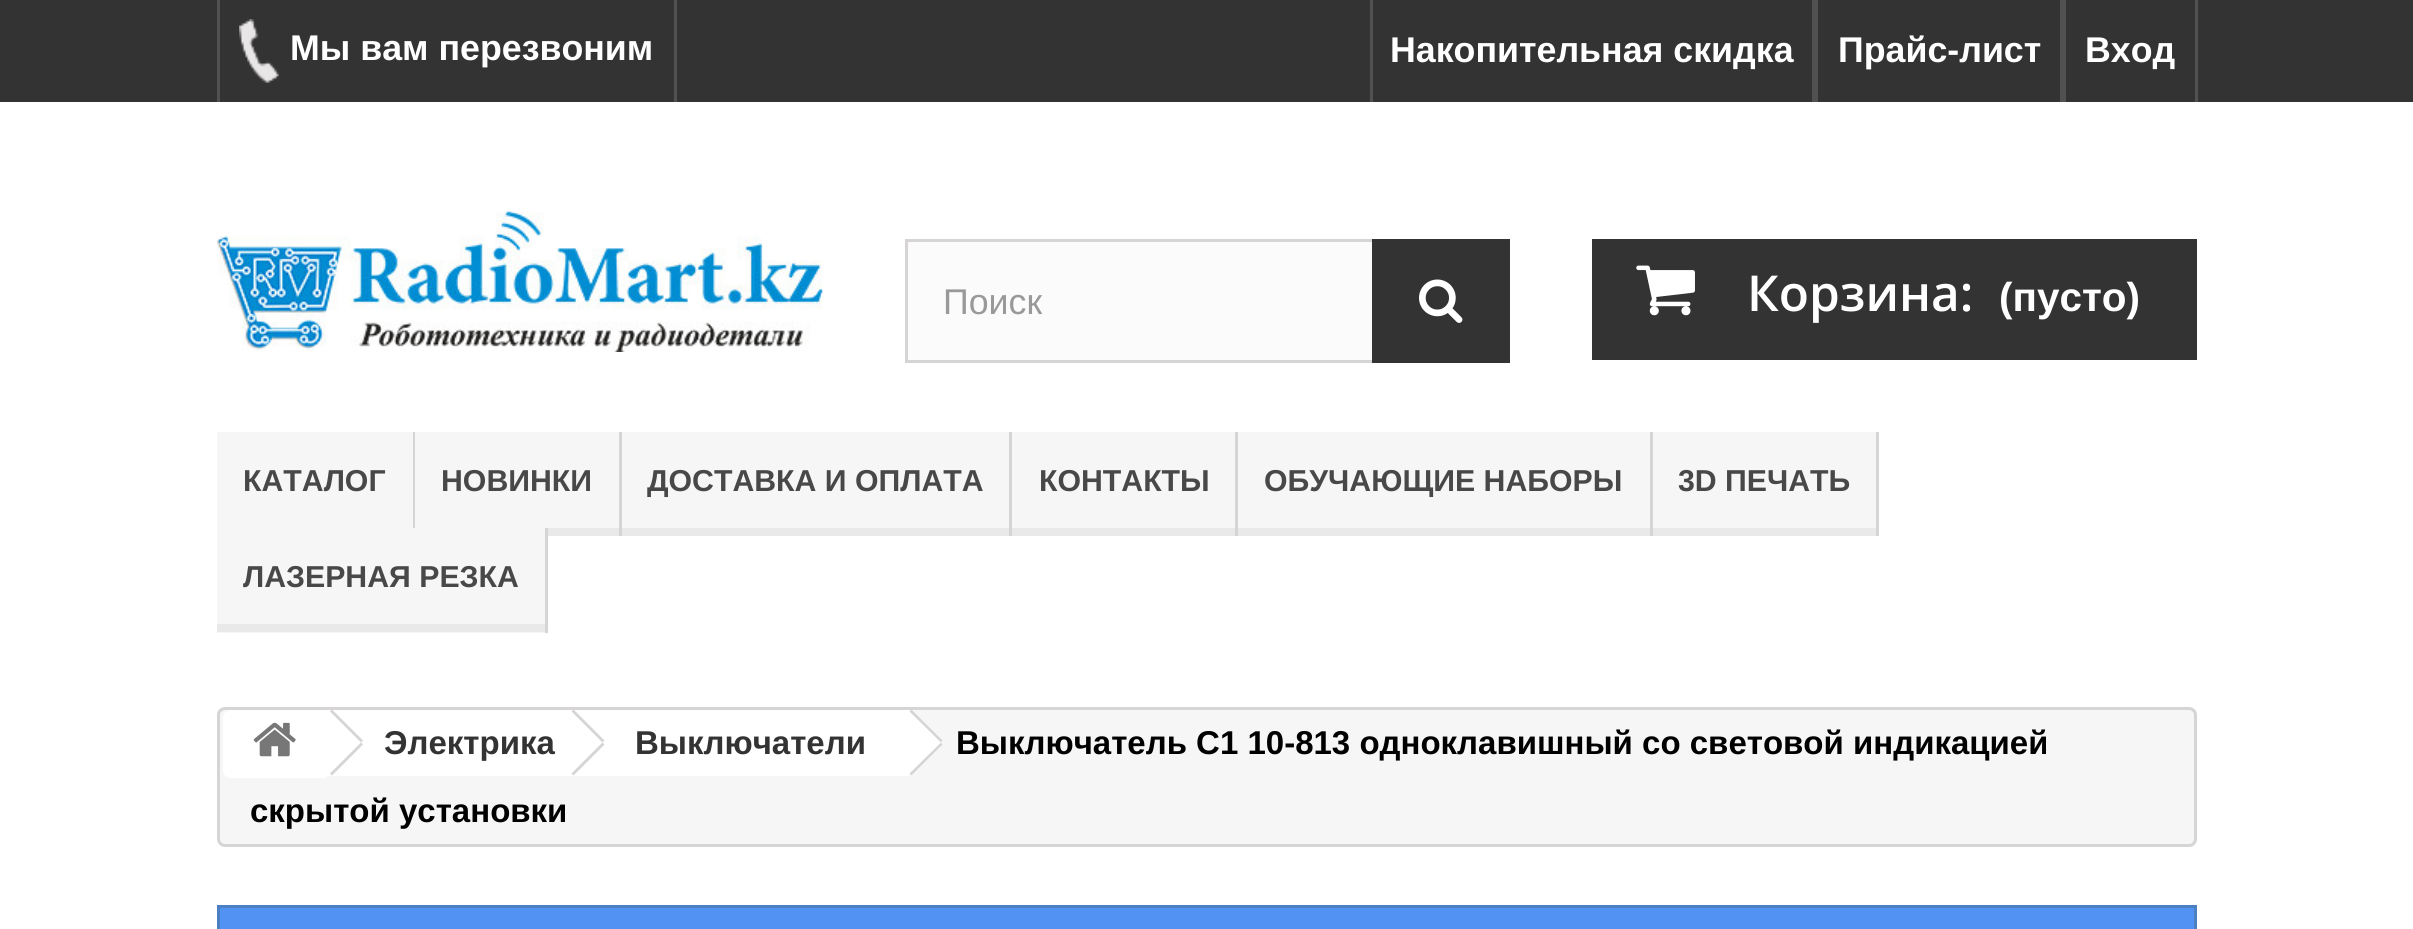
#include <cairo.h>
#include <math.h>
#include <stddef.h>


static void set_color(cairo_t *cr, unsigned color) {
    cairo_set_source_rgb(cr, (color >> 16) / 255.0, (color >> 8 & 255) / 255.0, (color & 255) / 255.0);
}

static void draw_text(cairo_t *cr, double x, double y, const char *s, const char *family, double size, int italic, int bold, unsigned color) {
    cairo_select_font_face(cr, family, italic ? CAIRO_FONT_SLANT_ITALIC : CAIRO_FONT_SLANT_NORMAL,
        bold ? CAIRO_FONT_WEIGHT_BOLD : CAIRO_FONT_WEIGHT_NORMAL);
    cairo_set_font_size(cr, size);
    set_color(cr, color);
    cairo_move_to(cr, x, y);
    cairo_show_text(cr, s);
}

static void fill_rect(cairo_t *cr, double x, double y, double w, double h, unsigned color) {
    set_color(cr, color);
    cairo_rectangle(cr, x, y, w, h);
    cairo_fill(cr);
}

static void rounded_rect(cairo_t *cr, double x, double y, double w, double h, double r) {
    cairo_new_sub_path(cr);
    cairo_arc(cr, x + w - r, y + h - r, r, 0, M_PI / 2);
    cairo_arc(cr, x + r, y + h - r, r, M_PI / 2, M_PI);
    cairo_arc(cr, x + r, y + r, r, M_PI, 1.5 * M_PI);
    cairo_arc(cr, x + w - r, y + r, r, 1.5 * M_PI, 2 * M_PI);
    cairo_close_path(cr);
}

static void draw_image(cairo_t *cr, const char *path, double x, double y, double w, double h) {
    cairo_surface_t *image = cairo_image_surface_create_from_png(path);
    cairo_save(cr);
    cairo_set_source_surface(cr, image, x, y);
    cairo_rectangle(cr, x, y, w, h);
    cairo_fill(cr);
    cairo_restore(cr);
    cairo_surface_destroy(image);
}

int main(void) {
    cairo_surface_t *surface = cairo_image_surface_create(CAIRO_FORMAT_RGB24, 2413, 929);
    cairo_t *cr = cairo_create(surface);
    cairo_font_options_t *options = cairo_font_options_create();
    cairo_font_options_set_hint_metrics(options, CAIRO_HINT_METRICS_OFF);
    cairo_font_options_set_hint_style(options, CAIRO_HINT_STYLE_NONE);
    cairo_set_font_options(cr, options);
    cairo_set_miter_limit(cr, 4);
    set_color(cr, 0xFFFFFF);
    cairo_paint(cr);
    fill_rect(cr, 0, 0, 2413, 102, 0x333333);
    fill_rect(cr, 674, 0, 3, 102, 0x515151);
    fill_rect(cr, 217, 0, 3, 102, 0x515151);
    draw_image(cr, "assets/img1.png", 239, 19, 40, 64);
    draw_text(cr, 290, 60, "Мы вам перезвоним", "Liberation Sans", 35.75, 0, 1, 0xFFFFFF);
    fill_rect(cr, 1370, 0, 3, 102, 0x515151);
    draw_text(cr, 1390, 62, "Накопительная скидка", "Liberation Sans", 35.75, 0, 1, 0xFFFFFF);
    fill_rect(cr, 1812, 0, 6, 102, 0x515151);
    draw_text(cr, 1838, 62, "Прайс-лист", "Liberation Sans", 35.75, 0, 1, 0xFFFFFF);
    fill_rect(cr, 2195, 0, 3, 102, 0x515151);
    fill_rect(cr, 2060, 0, 6, 102, 0x515151);
    draw_text(cr, 2085, 62, "Вход", "Liberation Sans", 35.75, 0, 1, 0xFFFFFF);
    draw_image(cr, "assets/img2.png", 217, 211, 606, 141);
    fill_rect(cr, 908, 242, 464, 118, 0xFBFBFB);
    cairo_rectangle(cr, 906.5, 240.5, 602, 121);
    set_color(cr, 0xD6D4D4);
    cairo_set_line_width(cr, 3);
    cairo_stroke(cr);
    draw_text(cr, 943, 314, "Поиск", "Liberation Sans", 35.75, 0, 0, 0x999999);
    fill_rect(cr, 1372, 239, 138, 124, 0x333333);
    draw_image(cr, "assets/img3.png", 1419, 279, 44, 44);
    fill_rect(cr, 1592, 239, 605, 121, 0x333333);
    draw_image(cr, "assets/img4.png", 1636, 265, 59, 51);
    draw_text(cr, 1747, 311, "Корзина:", "Open Sans SemiBold", 49.5, 0, 0, 0xFFFFFF);
    draw_text(cr, 1999, 311, "(пусто)", "Liberation Sans", 40.5, 0, 1, 0xFFFFFF);
    fill_rect(cr, 413, 432, 2, 104, 0xD6D4D4);
    fill_rect(cr, 217, 432, 196, 96, 0xF6F6F6);
    draw_text(cr, 243, 491, "КАТАЛОГ", "Liberation Sans", 30.25, 0, 1, 0x484848);
    fill_rect(cr, 619, 432, 3, 104, 0xD6D4D4);
    fill_rect(cr, 415, 432, 204, 96, 0xF6F6F6);
    fill_rect(cr, 548, 528, 71, 8, 0xE9E9E9);
    draw_text(cr, 441, 491, "НОВИНКИ", "Liberation Sans", 30.25, 0, 1, 0x484848);
    fill_rect(cr, 1009, 432, 3, 104, 0xD6D4D4);
    fill_rect(cr, 622, 432, 387, 96, 0xF6F6F6);
    fill_rect(cr, 622, 528, 387, 8, 0xE9E9E9);
    draw_text(cr, 647, 491, "ДОСТАВКА И ОПЛАТА", "Liberation Sans", 30.25, 0, 1, 0x484848);
    fill_rect(cr, 1235, 432, 3, 104, 0xD6D4D4);
    fill_rect(cr, 1012, 432, 223, 96, 0xF6F6F6);
    fill_rect(cr, 1012, 528, 223, 8, 0xE9E9E9);
    draw_text(cr, 1039, 491, "КОНТАКТЫ", "Liberation Sans", 30.25, 0, 1, 0x484848);
    fill_rect(cr, 1650, 432, 3, 104, 0xD6D4D4);
    fill_rect(cr, 1238, 432, 412, 96, 0xF6F6F6);
    fill_rect(cr, 1238, 528, 412, 8, 0xE9E9E9);
    draw_text(cr, 1264, 491, "ОБУЧАЮЩИЕ НАБОРЫ", "Liberation Sans", 30.25, 0, 1, 0x484848);
    fill_rect(cr, 1876, 432, 3, 104, 0xD6D4D4);
    fill_rect(cr, 1653, 432, 223, 96, 0xF6F6F6);
    fill_rect(cr, 1653, 528, 223, 8, 0xE9E9E9);
    draw_text(cr, 1678, 491, "3D ПЕЧАТЬ", "Liberation Sans", 30.25, 0, 1, 0x484848);
    fill_rect(cr, 545, 528, 3, 105, 0xD6D4D4);
    fill_rect(cr, 217, 528, 328, 105, 0xF6F6F6);
    fill_rect(cr, 217, 624, 328, 8, 0xE9E9E9);
    draw_text(cr, 243, 587, "ЛАЗЕРНАЯ РЕЗКА", "Liberation Sans", 30.25, 0, 1, 0x484848);
    set_color(cr, 0xF6F6F6);
    rounded_rect(cr, 218.5, 708.5, 1977, 137, 6.5);
    cairo_fill_preserve(cr);
    set_color(cr, 0xD6D4D4);
    cairo_stroke(cr);
    set_color(cr, 0xFFFFFF);
    cairo_new_path(cr);
    cairo_move_to(cr, 231, 710);
    cairo_line_to(cr, 327, 710);
    cairo_line_to(cr, 327, 778);
    cairo_line_to(cr, 231, 778);
    cairo_curve_to(cr, 226.5, 778, 223, 774.5, 223, 770);
    cairo_line_to(cr, 223, 718);
    cairo_curve_to(cr, 223, 713.5, 226.5, 710, 231, 710);
    cairo_close_path(cr);
    cairo_fill(cr);
    draw_image(cr, "assets/img5.png", 253, 722, 43, 35);
    fill_rect(cr, 327, 710, 248, 66, 0xFFFFFF);
    set_color(cr, 0xD6D4D4);
    cairo_new_path(cr);
    cairo_move_to(cr, 332, 709.5);
    cairo_line_to(cr, 363, 740.5);
    cairo_line_to(cr, 361, 742.5);
    cairo_line_to(cr, 330, 711.5);
    cairo_close_path(cr);
    cairo_fill(cr);
    cairo_new_path(cr);
    cairo_move_to(cr, 361, 742.5);
    cairo_line_to(cr, 363, 744.5);
    cairo_line_to(cr, 332, 775.5);
    cairo_line_to(cr, 330, 773.5);
    cairo_close_path(cr);
    cairo_fill(cr);
    draw_text(cr, 384, 754, "Электрика", "Liberation Sans", 33, 0, 1, 0x333333);
    set_color(cr, 0xFFFFFF);
    cairo_new_path(cr);
    cairo_move_to(cr, 603, 711);
    cairo_line_to(cr, 602, 710);
    cairo_line_to(cr, 596, 710);
    cairo_line_to(cr, 595, 711);
    cairo_line_to(cr, 568, 739);
    cairo_curve_to(cr, 566, 741, 566, 744, 568, 746);
    cairo_line_to(cr, 595, 774);
    cairo_curve_to(cr, 597, 776, 601, 776, 603, 774);
    cairo_line_to(cr, 630, 746);
    cairo_curve_to(cr, 632, 744, 632, 741, 630, 739);
    cairo_close_path(cr);
    cairo_fill(cr);
    fill_rect(cr, 575, 710, 333, 66, 0xFFFFFF);
    set_color(cr, 0xD6D4D4);
    cairo_new_path(cr);
    cairo_move_to(cr, 573.5, 709.5);
    cairo_line_to(cr, 604.5, 740.5);
    cairo_line_to(cr, 602.5, 742.5);
    cairo_line_to(cr, 571.5, 711.5);
    cairo_close_path(cr);
    cairo_fill(cr);
    cairo_new_path(cr);
    cairo_move_to(cr, 602.5, 742.5);
    cairo_line_to(cr, 604.5, 744.5);
    cairo_line_to(cr, 573.5, 775.5);
    cairo_line_to(cr, 571.5, 773.5);
    cairo_close_path(cr);
    cairo_fill(cr);
    draw_text(cr, 635, 754, "Выключатели", "Liberation Sans", 33, 0, 1, 0x333333);
    set_color(cr, 0xFFFFFF);
    cairo_new_path(cr);
    cairo_move_to(cr, 914, 711);
    cairo_line_to(cr, 912, 710);
    cairo_line_to(cr, 907, 710);
    cairo_line_to(cr, 906, 711);
    cairo_line_to(cr, 879, 739);
    cairo_curve_to(cr, 876, 741, 876, 744, 879, 746);
    cairo_line_to(cr, 906, 774);
    cairo_curve_to(cr, 908, 776, 911, 776, 914, 774);
    cairo_line_to(cr, 941, 746);
    cairo_curve_to(cr, 943, 744, 943, 741, 941, 739);
    cairo_close_path(cr);
    cairo_fill(cr);
    set_color(cr, 0xD6D4D4);
    cairo_new_path(cr);
    cairo_move_to(cr, 911.5, 709.5);
    cairo_line_to(cr, 942.5, 740.5);
    cairo_line_to(cr, 941, 742.5);
    cairo_line_to(cr, 909.5, 711.5);
    cairo_close_path(cr);
    cairo_fill(cr);
    cairo_new_path(cr);
    cairo_move_to(cr, 941, 742.5);
    cairo_line_to(cr, 942.5, 744.5);
    cairo_line_to(cr, 911.5, 775.5);
    cairo_line_to(cr, 909.5, 773.5);
    cairo_close_path(cr);
    cairo_fill(cr);
    draw_text(cr, 956, 754, "Выключатель С1 10-813 одноклавишный со световой индикацией", "Liberation Sans", 33, 0, 1, 0x000000);
    draw_text(cr, 250, 822, "скрытой установки", "Liberation Sans", 33, 0, 1, 0x000000);
    set_color(cr, 0x5192F3);
    cairo_rectangle(cr, 218.5, 906.5, 1977, 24);
    cairo_fill_preserve(cr);
    set_color(cr, 0x4B80C3);
    cairo_stroke(cr);
    cairo_surface_write_to_png(surface, "output.png");
    cairo_font_options_destroy(options);
    cairo_destroy(cr);
    cairo_surface_destroy(surface);
    return 0;
}
